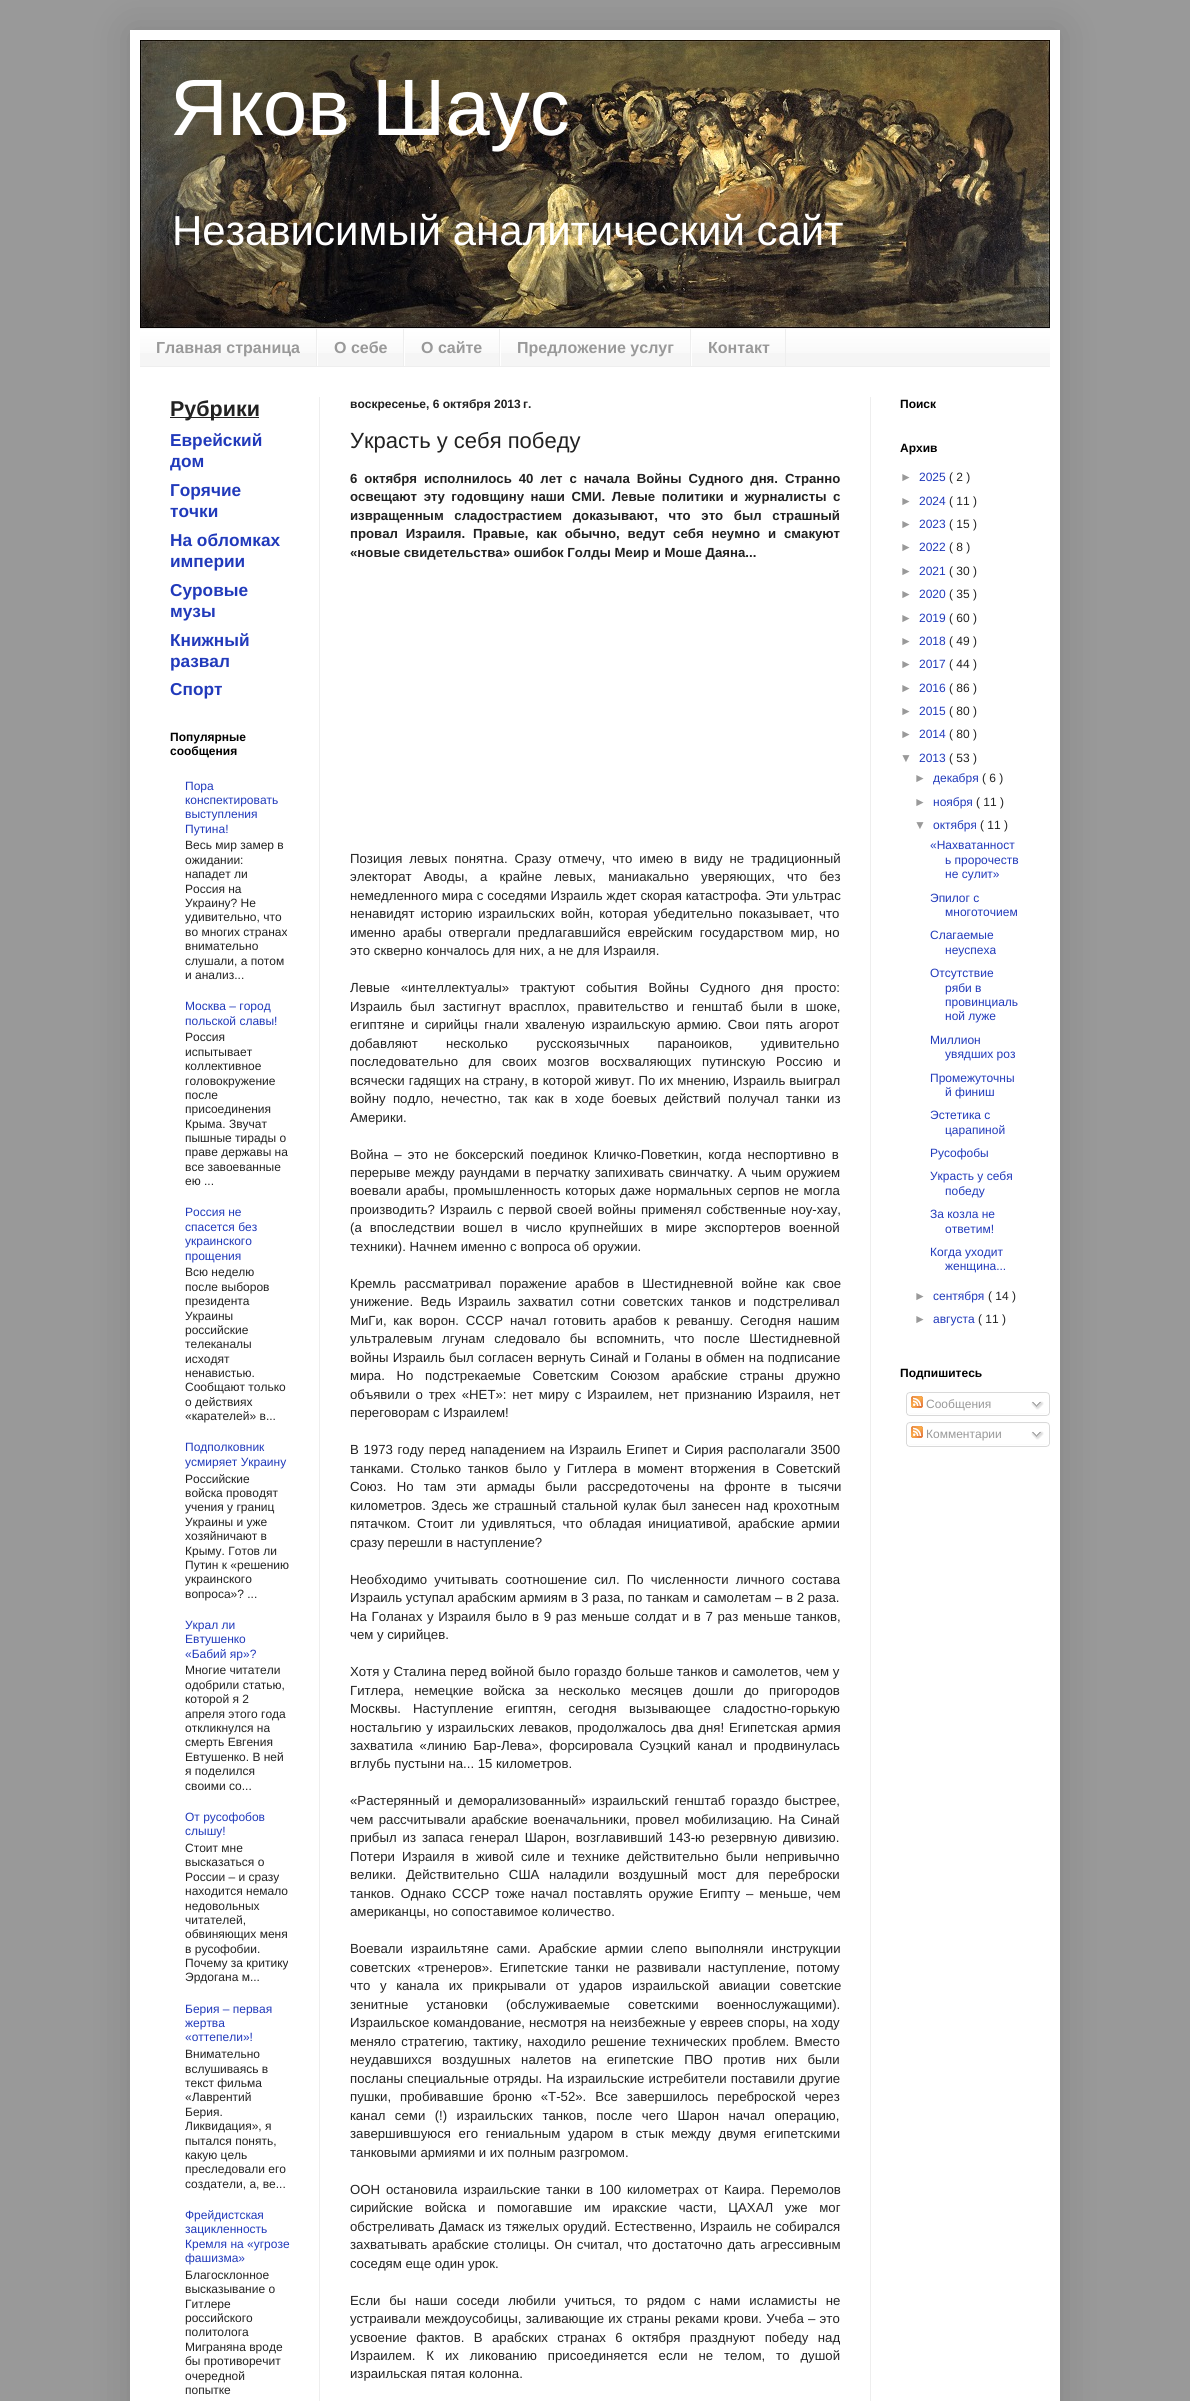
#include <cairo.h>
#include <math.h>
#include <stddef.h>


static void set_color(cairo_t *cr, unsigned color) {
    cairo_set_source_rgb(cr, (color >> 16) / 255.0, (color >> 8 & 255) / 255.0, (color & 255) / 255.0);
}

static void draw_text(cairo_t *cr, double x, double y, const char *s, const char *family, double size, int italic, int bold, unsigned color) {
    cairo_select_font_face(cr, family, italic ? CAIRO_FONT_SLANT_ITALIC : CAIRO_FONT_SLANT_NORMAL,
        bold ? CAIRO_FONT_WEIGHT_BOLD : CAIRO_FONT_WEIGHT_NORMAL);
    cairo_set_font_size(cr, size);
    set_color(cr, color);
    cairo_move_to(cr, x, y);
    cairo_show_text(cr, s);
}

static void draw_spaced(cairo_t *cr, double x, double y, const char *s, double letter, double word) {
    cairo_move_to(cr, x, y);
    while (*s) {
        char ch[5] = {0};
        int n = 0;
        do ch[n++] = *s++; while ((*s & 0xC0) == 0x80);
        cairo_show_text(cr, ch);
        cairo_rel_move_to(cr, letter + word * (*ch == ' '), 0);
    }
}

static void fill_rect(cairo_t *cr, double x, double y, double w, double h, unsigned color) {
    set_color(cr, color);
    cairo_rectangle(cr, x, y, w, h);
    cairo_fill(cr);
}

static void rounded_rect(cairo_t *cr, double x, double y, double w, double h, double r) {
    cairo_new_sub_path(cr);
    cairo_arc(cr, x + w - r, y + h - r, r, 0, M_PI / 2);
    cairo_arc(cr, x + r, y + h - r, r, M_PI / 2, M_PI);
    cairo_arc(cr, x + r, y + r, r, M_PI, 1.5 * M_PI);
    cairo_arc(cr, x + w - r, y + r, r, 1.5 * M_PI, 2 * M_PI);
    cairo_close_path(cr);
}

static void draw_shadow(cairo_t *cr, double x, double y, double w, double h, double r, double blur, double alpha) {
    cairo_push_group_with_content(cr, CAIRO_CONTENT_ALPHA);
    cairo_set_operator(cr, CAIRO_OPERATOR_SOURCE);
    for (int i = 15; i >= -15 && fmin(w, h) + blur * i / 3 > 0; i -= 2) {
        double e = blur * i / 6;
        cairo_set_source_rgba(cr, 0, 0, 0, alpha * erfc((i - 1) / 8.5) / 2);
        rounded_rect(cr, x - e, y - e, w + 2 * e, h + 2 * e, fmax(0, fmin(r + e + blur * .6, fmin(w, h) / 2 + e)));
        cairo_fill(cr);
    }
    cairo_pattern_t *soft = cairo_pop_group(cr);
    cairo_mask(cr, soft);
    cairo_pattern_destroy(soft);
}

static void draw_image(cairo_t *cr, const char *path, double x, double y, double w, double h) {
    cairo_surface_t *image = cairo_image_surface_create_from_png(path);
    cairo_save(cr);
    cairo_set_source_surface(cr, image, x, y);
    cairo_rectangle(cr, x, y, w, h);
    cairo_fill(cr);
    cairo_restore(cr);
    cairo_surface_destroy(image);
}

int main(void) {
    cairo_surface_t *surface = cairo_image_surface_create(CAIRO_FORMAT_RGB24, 1190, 2401);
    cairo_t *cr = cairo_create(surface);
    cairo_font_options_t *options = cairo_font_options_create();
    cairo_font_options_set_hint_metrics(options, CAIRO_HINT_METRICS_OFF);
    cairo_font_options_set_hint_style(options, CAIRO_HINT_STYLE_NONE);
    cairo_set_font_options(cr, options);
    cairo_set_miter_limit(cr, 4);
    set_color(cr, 0x999999);
    cairo_paint(cr);
    set_color(cr, 0x000000);
    draw_shadow(cr, 130, 30, 930, 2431, 0, 20, 0.15);
    fill_rect(cr, 130, 30, 930, 2371, 0xFFFFFF);
    draw_image(cr, "assets/img1.png", 140, 40, 910, 288);
    draw_text(cr, 170, 135, "Яков Шаус", "Liberation Sans", 80, 0, 0, 0xFFFFFF);
    draw_text(cr, 172, 245, "Независимый аналитический сайт", "Liberation Sans", 42, 0, 0, 0xFFFFFF);
    fill_rect(cr, 140, 330, 910, 36, 0xF5F5F5);
    draw_image(cr, "assets/img2.png", 140, 329, 910, 24);
    fill_rect(cr, 140, 328, 910, 1, 0xEEEEEE);
    fill_rect(cr, 140, 366, 910, 1, 0xEEEEEE);
    fill_rect(cr, 316, 329, 1, 37, 0xEEEEEE);
    draw_text(cr, 156, 353, "Главная страница", "Liberation Sans", 16, 0, 1, 0x999999);
    fill_rect(cr, 403, 329, 1, 37, 0xEEEEEE);
    fill_rect(cr, 317, 340, 1, 26, 0xFFFFFF);
    draw_text(cr, 334, 353, "О себе", "Liberation Sans", 16, 0, 1, 0x999999);
    fill_rect(cr, 499, 329, 1, 37, 0xEEEEEE);
    fill_rect(cr, 404, 340, 1, 26, 0xFFFFFF);
    draw_text(cr, 421, 353, "О сайте", "Liberation Sans", 16, 0, 1, 0x999999);
    fill_rect(cr, 690, 329, 1, 37, 0xEEEEEE);
    fill_rect(cr, 500, 340, 1, 26, 0xFFFFFF);
    draw_text(cr, 517, 353, "Предложение услуг", "Liberation Sans", 16, 0, 1, 0x999999);
    fill_rect(cr, 785, 329, 1, 37, 0xEEEEEE);
    fill_rect(cr, 691, 340, 1, 26, 0xFFFFFF);
    draw_text(cr, 708, 353, "Контакт", "Liberation Sans", 16, 0, 1, 0x999999);
    fill_rect(cr, 319, 397, 1, 2004, 0xEEEEEE);
    fill_rect(cr, 870, 397, 1, 2004, 0xEEEEEE);
    fill_rect(cr, 170, 417, 89, 1, 0x222222);
    draw_text(cr, 170, 416, "Рубрики", "Liberation Sans", 21.5, 0, 1, 0x222222);
    draw_text(cr, 170, 446, "Еврейский", "Liberation Sans", 17.25, 0, 1, 0x213ABB);
    draw_text(cr, 170, 467, "дом", "Liberation Sans", 17.25, 0, 1, 0x213ABB);
    draw_text(cr, 170, 496, "Горячие", "Liberation Sans", 17.25, 0, 1, 0x213ABB);
    draw_text(cr, 170, 517, "точки", "Liberation Sans", 17.25, 0, 1, 0x213ABB);
    draw_text(cr, 170, 546, "На обломках", "Liberation Sans", 17.25, 0, 1, 0x213ABB);
    draw_text(cr, 170, 567, "империи", "Liberation Sans", 17.25, 0, 1, 0x213ABB);
    draw_text(cr, 170, 596, "Суровые", "Liberation Sans", 17.25, 0, 1, 0x213ABB);
    draw_text(cr, 170, 617, "музы", "Liberation Sans", 17.25, 0, 1, 0x213ABB);
    draw_text(cr, 170, 646, "Книжный", "Liberation Sans", 17.25, 0, 1, 0x213ABB);
    draw_text(cr, 170, 667, "развал", "Liberation Sans", 17.25, 0, 1, 0x213ABB);
    draw_text(cr, 170, 695, "Спорт", "Liberation Sans", 17.25, 0, 1, 0x213ABB);
    draw_text(cr, 170, 741, "Популярные", "Liberation Sans", 12, 0, 1, 0x000000);
    draw_text(cr, 170, 755, "сообщения", "Liberation Sans", 12, 0, 1, 0x000000);
    draw_text(cr, 185, 790, "Пора", "Liberation Sans", 12, 0, 0, 0x213ABB);
    draw_text(cr, 185, 804, "конспектировать", "Liberation Sans", 12, 0, 0, 0x213ABB);
    draw_text(cr, 185, 818, "выступления", "Liberation Sans", 12, 0, 0, 0x213ABB);
    draw_text(cr, 185, 833, "Путина!", "Liberation Sans", 12, 0, 0, 0x213ABB);
    draw_text(cr, 185, 849, "Весь мир замер в", "Liberation Sans", 12, 0, 0, 0x222222);
    draw_text(cr, 185, 864, "ожидании:", "Liberation Sans", 12, 0, 0, 0x222222);
    draw_text(cr, 185, 878, "нападет ли", "Liberation Sans", 12, 0, 0, 0x222222);
    draw_text(cr, 185, 893, "Россия на", "Liberation Sans", 12, 0, 0, 0x222222);
    draw_text(cr, 185, 907, "Украину? Не", "Liberation Sans", 12, 0, 0, 0x222222);
    draw_text(cr, 185, 921, "удивительно, что", "Liberation Sans", 12, 0, 0, 0x222222);
    draw_text(cr, 185, 936, "во многих странах", "Liberation Sans", 12, 0, 0, 0x222222);
    draw_text(cr, 185, 950, "внимательно", "Liberation Sans", 12, 0, 0, 0x222222);
    draw_text(cr, 185, 965, "слушали, а потом", "Liberation Sans", 12, 0, 0, 0x222222);
    draw_text(cr, 185, 979, "и анализ...", "Liberation Sans", 12, 0, 0, 0x222222);
    draw_text(cr, 185, 1010, "Москва – город", "Liberation Sans", 12, 0, 0, 0x213ABB);
    draw_text(cr, 185, 1025, "польской славы!", "Liberation Sans", 12, 0, 0, 0x213ABB);
    draw_text(cr, 185, 1041, "Россия", "Liberation Sans", 12, 0, 0, 0x222222);
    draw_text(cr, 185, 1056, "испытывает", "Liberation Sans", 12, 0, 0, 0x222222);
    draw_text(cr, 185, 1070, "коллективное", "Liberation Sans", 12, 0, 0, 0x222222);
    draw_text(cr, 185, 1085, "головокружение", "Liberation Sans", 12, 0, 0, 0x222222);
    draw_text(cr, 185, 1099, "после", "Liberation Sans", 12, 0, 0, 0x222222);
    draw_text(cr, 185, 1113, "присоединения", "Liberation Sans", 12, 0, 0, 0x222222);
    draw_text(cr, 185, 1128, "Крыма. Звучат", "Liberation Sans", 12, 0, 0, 0x222222);
    draw_text(cr, 185, 1142, "пышные тирады о", "Liberation Sans", 12, 0, 0, 0x222222);
    draw_text(cr, 185, 1156, "праве державы на", "Liberation Sans", 12, 0, 0, 0x222222);
    draw_text(cr, 185, 1171, "все завоеванные", "Liberation Sans", 12, 0, 0, 0x222222);
    draw_text(cr, 185, 1185, "ею ...", "Liberation Sans", 12, 0, 0, 0x222222);
    draw_text(cr, 185, 1216, "Россия не", "Liberation Sans", 12, 0, 0, 0x213ABB);
    draw_text(cr, 185, 1231, "спасется без", "Liberation Sans", 12, 0, 0, 0x213ABB);
    draw_text(cr, 185, 1245, "украинского", "Liberation Sans", 12, 0, 0, 0x213ABB);
    draw_text(cr, 185, 1260, "прощения", "Liberation Sans", 12, 0, 0, 0x213ABB);
    draw_text(cr, 185, 1276, "Всю неделю", "Liberation Sans", 12, 0, 0, 0x222222);
    draw_text(cr, 185, 1291, "после выборов", "Liberation Sans", 12, 0, 0, 0x222222);
    draw_text(cr, 185, 1305, "президента", "Liberation Sans", 12, 0, 0, 0x222222);
    draw_text(cr, 185, 1320, "Украины", "Liberation Sans", 12, 0, 0, 0x222222);
    draw_text(cr, 185, 1334, "российские", "Liberation Sans", 12, 0, 0, 0x222222);
    draw_text(cr, 185, 1348, "телеканалы", "Liberation Sans", 12, 0, 0, 0x222222);
    draw_text(cr, 185, 1363, "исходят", "Liberation Sans", 12, 0, 0, 0x222222);
    draw_text(cr, 185, 1377, "ненавистью.", "Liberation Sans", 12, 0, 0, 0x222222);
    draw_text(cr, 185, 1391, "Сообщают только", "Liberation Sans", 12, 0, 0, 0x222222);
    draw_text(cr, 185, 1406, "о действиях", "Liberation Sans", 12, 0, 0, 0x222222);
    draw_text(cr, 185, 1420, "«карателей» в...", "Liberation Sans", 12, 0, 0, 0x222222);
    draw_text(cr, 185, 1451, "Подполковник", "Liberation Sans", 12, 0, 0, 0x213ABB);
    draw_text(cr, 185, 1466, "усмиряет Украину", "Liberation Sans", 12, 0, 0, 0x213ABB);
    draw_text(cr, 185, 1483, "Российские", "Liberation Sans", 12, 0, 0, 0x222222);
    draw_text(cr, 185, 1497, "войска проводят", "Liberation Sans", 12, 0, 0, 0x222222);
    draw_text(cr, 185, 1511, "учения у границ", "Liberation Sans", 12, 0, 0, 0x222222);
    draw_text(cr, 185, 1526, "Украины и уже", "Liberation Sans", 12, 0, 0, 0x222222);
    draw_text(cr, 185, 1540, "хозяйничают в", "Liberation Sans", 12, 0, 0, 0x222222);
    draw_text(cr, 185, 1555, "Крыму. Готов ли", "Liberation Sans", 12, 0, 0, 0x222222);
    draw_text(cr, 185, 1569, "Путин к «решению", "Liberation Sans", 12, 0, 0, 0x222222);
    draw_text(cr, 185, 1583, "украинского", "Liberation Sans", 12, 0, 0, 0x222222);
    draw_text(cr, 185, 1598, "вопроса»? ...", "Liberation Sans", 12, 0, 0, 0x222222);
    draw_text(cr, 185, 1629, "Украл ли", "Liberation Sans", 12, 0, 0, 0x213ABB);
    draw_text(cr, 185, 1643, "Евтушенко", "Liberation Sans", 12, 0, 0, 0x213ABB);
    draw_text(cr, 185, 1658, "«Бабий яр»?", "Liberation Sans", 12, 0, 0, 0x213ABB);
    draw_text(cr, 185, 1674, "Многие читатели", "Liberation Sans", 12, 0, 0, 0x222222);
    draw_text(cr, 185, 1689, "одобрили статью,", "Liberation Sans", 12, 0, 0, 0x222222);
    draw_text(cr, 185, 1703, "которой я 2", "Liberation Sans", 12, 0, 0, 0x222222);
    draw_text(cr, 185, 1718, "апреля этого года", "Liberation Sans", 12, 0, 0, 0x222222);
    draw_text(cr, 185, 1732, "откликнулся на", "Liberation Sans", 12, 0, 0, 0x222222);
    draw_text(cr, 185, 1746, "смерть Евгения", "Liberation Sans", 12, 0, 0, 0x222222);
    draw_text(cr, 185, 1761, "Евтушенко. В ней", "Liberation Sans", 12, 0, 0, 0x222222);
    draw_text(cr, 185, 1775, "я поделился", "Liberation Sans", 12, 0, 0, 0x222222);
    draw_text(cr, 185, 1790, "своими со...", "Liberation Sans", 12, 0, 0, 0x222222);
    draw_text(cr, 185, 1821, "От русофобов", "Liberation Sans", 12, 0, 0, 0x213ABB);
    draw_text(cr, 185, 1835, "слышу!", "Liberation Sans", 12, 0, 0, 0x213ABB);
    draw_text(cr, 185, 1852, "Стоит мне", "Liberation Sans", 12, 0, 0, 0x222222);
    draw_text(cr, 185, 1866, "высказаться о", "Liberation Sans", 12, 0, 0, 0x222222);
    draw_text(cr, 185, 1881, "России – и сразу", "Liberation Sans", 12, 0, 0, 0x222222);
    draw_text(cr, 185, 1895, "находится немало", "Liberation Sans", 12, 0, 0, 0x222222);
    draw_text(cr, 185, 1910, "недовольных", "Liberation Sans", 12, 0, 0, 0x222222);
    draw_text(cr, 185, 1924, "читателей,", "Liberation Sans", 12, 0, 0, 0x222222);
    draw_text(cr, 185, 1938, "обвиняющих меня", "Liberation Sans", 12, 0, 0, 0x222222);
    draw_text(cr, 185, 1953, "в русофобии.", "Liberation Sans", 12, 0, 0, 0x222222);
    draw_text(cr, 185, 1967, "Почему за критику", "Liberation Sans", 12, 0, 0, 0x222222);
    draw_text(cr, 185, 1981, "Эрдогана м...", "Liberation Sans", 12, 0, 0, 0x222222);
    draw_text(cr, 185, 2013, "Берия – первая", "Liberation Sans", 12, 0, 0, 0x213ABB);
    draw_text(cr, 185, 2027, "жертва", "Liberation Sans", 12, 0, 0, 0x213ABB);
    draw_text(cr, 185, 2041, "«оттепели»!", "Liberation Sans", 12, 0, 0, 0x213ABB);
    draw_text(cr, 185, 2058, "Внимательно", "Liberation Sans", 12, 0, 0, 0x222222);
    draw_text(cr, 185, 2073, "вслушиваясь в", "Liberation Sans", 12, 0, 0, 0x222222);
    draw_text(cr, 185, 2087, "текст фильма", "Liberation Sans", 12, 0, 0, 0x222222);
    draw_text(cr, 185, 2101, "«Лаврентий", "Liberation Sans", 12, 0, 0, 0x222222);
    draw_text(cr, 185, 2116, "Берия.", "Liberation Sans", 12, 0, 0, 0x222222);
    draw_text(cr, 185, 2130, "Ликвидация», я", "Liberation Sans", 12, 0, 0, 0x222222);
    draw_text(cr, 185, 2145, "пытался понять,", "Liberation Sans", 12, 0, 0, 0x222222);
    draw_text(cr, 185, 2159, "какую цель", "Liberation Sans", 12, 0, 0, 0x222222);
    draw_text(cr, 185, 2173, "преследовали его", "Liberation Sans", 12, 0, 0, 0x222222);
    draw_text(cr, 185, 2188, "создатели, а, ве...", "Liberation Sans", 12, 0, 0, 0x222222);
    draw_text(cr, 185, 2219, "Фрейдистская", "Liberation Sans", 12, 0, 0, 0x213ABB);
    draw_text(cr, 185, 2233, "зацикленность", "Liberation Sans", 12, 0, 0, 0x213ABB);
    draw_text(cr, 185, 2248, "Кремля на «угрозе", "Liberation Sans", 12, 0, 0, 0x213ABB);
    draw_text(cr, 185, 2262, "фашизма»", "Liberation Sans", 12, 0, 0, 0x213ABB);
    draw_text(cr, 185, 2279, "Благосклонное", "Liberation Sans", 12, 0, 0, 0x222222);
    draw_text(cr, 185, 2293, "высказывание о", "Liberation Sans", 12, 0, 0, 0x222222);
    draw_text(cr, 185, 2308, "Гитлере", "Liberation Sans", 12, 0, 0, 0x222222);
    draw_text(cr, 185, 2322, "российского", "Liberation Sans", 12, 0, 0, 0x222222);
    draw_text(cr, 185, 2336, "политолога", "Liberation Sans", 12, 0, 0, 0x222222);
    draw_text(cr, 185, 2351, "Миграняна вроде", "Liberation Sans", 12, 0, 0, 0x222222);
    draw_text(cr, 185, 2365, "бы противоречит", "Liberation Sans", 12, 0, 0, 0x222222);
    draw_text(cr, 185, 2380, "очередной", "Liberation Sans", 12, 0, 0, 0x222222);
    draw_text(cr, 185, 2394, "попытке", "Liberation Sans", 12, 0, 0, 0x222222);
    draw_text(cr, 350, 408, "воскресенье, 6 октября 2013 г.", "Liberation Sans", 12, 0, 1, 0x222222);
    draw_text(cr, 350, 448, "Украсть у себя победу", "Liberation Sans", 22, 0, 0, 0x222222);
    cairo_select_font_face(cr, "Liberation Sans", CAIRO_FONT_SLANT_NORMAL, CAIRO_FONT_WEIGHT_BOLD);
    cairo_set_font_size(cr, 13.2);
    draw_spaced(cr, 350, 483, "6 октября исполнилось 40 лет с начала Войны Судного дня. Странно", 0, 3.25);
    draw_spaced(cr, 350, 501, "освещают эту годовщину наши СМИ. Левые политики и журналисты с", 0, 2.9);
    draw_spaced(cr, 350, 520, "извращенным сладострастием доказывают, что это был страшный", 0, 7);
    draw_spaced(cr, 350, 538, "провал Израиля. Правые, как обычно, ведут себя неумно и смакуют", 0, 4.25);
    draw_text(cr, 350, 557, "«новые свидетельства» ошибок Голды Меир и Моше Даяна...", "Liberation Sans", 13.2, 0, 1, 0x222222);
    cairo_select_font_face(cr, "Liberation Sans", CAIRO_FONT_SLANT_NORMAL, CAIRO_FONT_WEIGHT_NORMAL);
    draw_spaced(cr, 350, 863, "Позиция левых понятна. Сразу отмечу, что имею в виду не традиционный", 0, 3.25);
    draw_spaced(cr, 350, 881, "электорат Аводы, а крайне левых, маниакально уверяющих, что без", 0, 8.5);
    draw_spaced(cr, 350, 900, "немедленного мира с соседями Израиль ждет скорая катастрофа. Эти ультрас", 0, 0.25);
    draw_spaced(cr, 350, 918, "ненавидят историю израильских войн, которая убедительно показывает, что", 0, 2.25);
    draw_spaced(cr, 350, 937, "именно арабы отвергали предлагавшийся еврейским государством мир, но", 0, 3.25);
    draw_text(cr, 350, 955, "это скверно кончалось для них, а не для Израиля.", "Liberation Sans", 13.2, 0, 0, 0x222222);
    draw_spaced(cr, 350, 992, "Левые «интеллектуалы» трактуют события Войны Судного дня просто:", 0, 7.25);
    draw_spaced(cr, 350, 1011, "Израиль был застигнут врасплох, правительство и генштаб были в шоке,", 0, 4.25);
    draw_spaced(cr, 350, 1029, "египтяне и сирийцы гнали хваленую израильскую армию. Свои пять агорот", 0, 2.75);
    draw_spaced(cr, 350, 1048, "добавляют несколько русскоязычных параноиков, удивительно", 0, 24.5);
    draw_spaced(cr, 350, 1066, "последовательно для своих мозгов восхваляющих путинскую Россию и", 0, 7);
    draw_spaced(cr, 350, 1085, "всячески гадящих на страну, в которой живут. По их мнению, Израиль выиграл", 0, 0.25);
    draw_spaced(cr, 350, 1103, "войну подло, нечестно, так как в ходе боевых действий получал танки из", 0, 3.6);
    draw_text(cr, 350, 1122, "Америки.", "Liberation Sans", 13.2, 0, 0, 0x222222);
    draw_spaced(cr, 350, 1159, "Война – это не боксерский поединок Кличко-Поветкин, когда неспортивно в", 0, 2.5);
    draw_spaced(cr, 350, 1177, "перерыве между раундами в перчатку запихивать свинчатку. А чьим оружием", 0, 1);
    draw_spaced(cr, 350, 1195, "воевали арабы, промышленность которых даже нормальных серпов не могла", 0, 1);
    draw_spaced(cr, 350, 1214, "производить? Израиль с первой своей войны применял собственные ноу-хау,", 0, 1.25);
    draw_spaced(cr, 350, 1232, "(а впоследствии вошел в число крупнейших в мире экспортеров военной", 0, 4.25);
    draw_text(cr, 350, 1251, "техники). Начнем именно с вопроса об оружии.", "Liberation Sans", 13.2, 0, 0, 0x222222);
    draw_spaced(cr, 350, 1288, "Кремль рассматривал поражение арабов в Шестидневной войне как свое", 0, 4.5);
    draw_spaced(cr, 350, 1306, "унижение. Ведь Израиль захватил сотни советских танков и подстреливал", 0, 3.6);
    draw_spaced(cr, 350, 1325, "МиГи, как ворон. СССР начал готовить арабов к реваншу. Сегодня нашим", 0, 3.1);
    draw_spaced(cr, 350, 1343, "ультралевым лгунам следовало бы вспомнить, что после Шестидневной", 0, 5.75);
    draw_spaced(cr, 350, 1362, "войны Израиль был согласен вернуть Синай и Голаны в обмен на подписание", 0, 0.5);
    draw_spaced(cr, 350, 1380, "мира. Но подстрекаемые Советским Союзом арабские страны дружно", 0, 8);
    draw_spaced(cr, 350, 1399, "объявили о трех «НЕТ»: нет миру с Израилем, нет признанию Израиля, нет", 0, 2.1);
    draw_text(cr, 350, 1417, "переговорам с Израилем!", "Liberation Sans", 13.2, 0, 0, 0x222222);
    draw_spaced(cr, 350, 1454, "В 1973 году перед нападением на Израиль Египет и Сирия располагали 3500", 0, 1);
    draw_spaced(cr, 350, 1473, "танками. Столько танков было у Гитлера в момент вторжения в Советский", 0, 2.9);
    draw_spaced(cr, 350, 1491, "Союз. Но там эти армады были рассредоточены на фронте в тысячи", 0, 6.5);
    draw_spaced(cr, 350, 1510, "километров. Здесь же страшный стальной кулак был занесен над крохотным", 0, 1.5);
    draw_spaced(cr, 350, 1528, "пятачком. Стоит ли удивляться, что обладая инициативой, арабские армии", 0, 3);
    draw_text(cr, 350, 1547, "сразу перешли в наступление?", "Liberation Sans", 13.2, 0, 0, 0x222222);
    draw_spaced(cr, 350, 1584, "Необходимо учитывать соотношение сил. По численности личного состава", 0, 3.5);
    draw_text(cr, 350, 1602, "Израиль уступал арабским армиям в 3 раза, по танкам и самолетам – в 2 раза.", "Liberation Sans", 13.2, 0, 0, 0x222222);
    draw_spaced(cr, 350, 1621, "На Голанах у Израиля было в 9 раз меньше солдат и в 7 раз меньше танков,", 0, 1);
    draw_text(cr, 350, 1639, "чем у сирийцев.", "Liberation Sans", 13.2, 0, 0, 0x222222);
    draw_spaced(cr, 350, 1676, "Хотя у Сталина перед войной было гораздо больше танков и самолетов, чем у", 0, 0.1);
    draw_spaced(cr, 350, 1695, "Гитлера, немецкие войска за несколько месяцев дошли до пригородов", 0, 6.5);
    draw_spaced(cr, 350, 1713, "Москвы. Наступление египтян, сегодня вызывающее сладостно-горькую", 0, 8.5);
    draw_spaced(cr, 350, 1732, "ностальгию у израильских леваков, продолжалось два дня! Египетская армия", 0, 1.25);
    draw_spaced(cr, 350, 1750, "захватила «линию Бар-Лева», форсировала Суэцкий канал и продвинулась", 0, 3.1);
    draw_text(cr, 350, 1768, "вглубь пустыни на... 15 километров.", "Liberation Sans", 13.2, 0, 0, 0x222222);
    draw_spaced(cr, 350, 1805, "«Растерянный и деморализованный» израильский генштаб гораздо быстрее,", 0, 2);
    draw_spaced(cr, 350, 1824, "чем рассчитывали арабские военачальники, провел мобилизацию. На Синай", 0, 1.75);
    draw_spaced(cr, 350, 1842, "прибыл из запаса генерал Шарон, возглавивший 143-ю резервную дивизию.", 0, 2.25);
    draw_spaced(cr, 350, 1861, "Потери Израиля в живой силе и технике действительно были непривычно", 0, 3.5);
    draw_spaced(cr, 350, 1879, "велики. Действительно США наладили воздушный мост для переброски", 0, 6);
    draw_spaced(cr, 350, 1898, "танков. Однако СССР тоже начал поставлять оружие Египту – меньше, чем", 0, 2.25);
    draw_text(cr, 350, 1916, "американцы, но сопоставимое количество.", "Liberation Sans", 13.2, 0, 0, 0x222222);
    draw_spaced(cr, 350, 1953, "Воевали израильтяне сами. Арабские армии слепо выполняли инструкции", 0, 4.25);
    draw_spaced(cr, 350, 1972, "советских «тренеров». Египетские танки не развивали наступление, потому", 0, 3);
    draw_spaced(cr, 350, 1990, "что у канала их прикрывали от ударов израильской авиации советские", 0, 6);
    draw_spaced(cr, 350, 2009, "зенитные установки (обслуживаемые советскими военнослужащими).", 0, 14.5);
    draw_spaced(cr, 350, 2027, "Израильское командование, несмотря на неизбежные у евреев споры, на ходу", 0, 0.25);
    draw_spaced(cr, 350, 2046, "меняло стратегию, тактику, находило решение технических проблем. Вместо", 0, 1.75);
    draw_spaced(cr, 350, 2064, "неудавшихся воздушных налетов на египетские ПВО против них были", 0, 6.75);
    draw_spaced(cr, 350, 2083, "посланы специальные отряды. На израильские истребители поставили другие", 0, 0.5);
    draw_spaced(cr, 350, 2101, "пушки, пробивавшие броню «Т-52». Все завершилось переброской через", 0, 5.25);
    draw_spaced(cr, 350, 2120, "канал семи (!) израильских танков, после чего Шарон начал операцию,", 0, 5.75);
    draw_spaced(cr, 350, 2138, "завершившуюся его гениальным ударом в стык между двумя египетскими", 0, 4);
    draw_text(cr, 350, 2157, "танковыми армиями и их полным разгромом.", "Liberation Sans", 13.2, 0, 0, 0x222222);
    draw_spaced(cr, 350, 2194, "ООН остановила израильские танки в 100 километрах от Каира. Перемолов", 0, 2.25);
    draw_spaced(cr, 350, 2212, "сирийские войска и помогавшие им иракские части, ЦАХАЛ уже мог", 0, 8);
    draw_spaced(cr, 350, 2231, "обстреливать Дамаск из тяжелых орудий. Естественно, Израиль не собирался", 0, 0.5);
    draw_spaced(cr, 350, 2249, "захватывать арабские столицы. Он считал, что достаточно дать агрессивным", 0, 1.25);
    draw_text(cr, 350, 2268, "соседям еще один урок.", "Liberation Sans", 13.2, 0, 0, 0x222222);
    draw_spaced(cr, 350, 2305, "Если бы наши соседи любили учиться, то рядом с нами исламисты не", 0, 5.1);
    draw_spaced(cr, 350, 2323, "устраивали междоусобицы, заливающие их страны реками крови. Учеба – это", 0, 0.6);
    draw_spaced(cr, 350, 2342, "усвоение фактов. В арабских странах 6 октября празднуют победу над", 0, 5.75);
    draw_spaced(cr, 350, 2360, "Израилем. К их ликованию присоединяется если не телом, то душой", 0, 7.25);
    draw_text(cr, 350, 2378, "израильская пятая колонна.", "Liberation Sans", 13.2, 0, 0, 0x222222);
    draw_text(cr, 900, 408, "Поиск", "Liberation Sans", 12, 0, 1, 0x000000);
    draw_text(cr, 900, 452, "Архив", "Liberation Sans", 12, 0, 1, 0x000000);
    draw_text(cr, 900, 481, "►", "Liberation Sans", 12, 0, 0, 0x999999);
    draw_text(cr, 919, 481, "2025", "Liberation Sans", 12, 0, 0, 0x213ABB);
    draw_text(cr, 949, 481, "( 2 )", "Liberation Sans", 12, 0, 0, 0x222222);
    draw_text(cr, 900, 505, "►", "Liberation Sans", 12, 0, 0, 0x999999);
    draw_text(cr, 919, 505, "2024", "Liberation Sans", 12, 0, 0, 0x213ABB);
    draw_text(cr, 949, 505, "( 11 )", "Liberation Sans", 12, 0, 0, 0x222222);
    draw_text(cr, 900, 528, "►", "Liberation Sans", 12, 0, 0, 0x999999);
    draw_text(cr, 919, 528, "2023", "Liberation Sans", 12, 0, 0, 0x213ABB);
    draw_text(cr, 949, 528, "( 15 )", "Liberation Sans", 12, 0, 0, 0x222222);
    draw_text(cr, 900, 551, "►", "Liberation Sans", 12, 0, 0, 0x999999);
    draw_text(cr, 919, 551, "2022", "Liberation Sans", 12, 0, 0, 0x213ABB);
    draw_text(cr, 949, 551, "( 8 )", "Liberation Sans", 12, 0, 0, 0x222222);
    draw_text(cr, 900, 575, "►", "Liberation Sans", 12, 0, 0, 0x999999);
    draw_text(cr, 919, 575, "2021", "Liberation Sans", 12, 0, 0, 0x213ABB);
    draw_text(cr, 949, 575, "( 30 )", "Liberation Sans", 12, 0, 0, 0x222222);
    draw_text(cr, 900, 598, "►", "Liberation Sans", 12, 0, 0, 0x999999);
    draw_text(cr, 919, 598, "2020", "Liberation Sans", 12, 0, 0, 0x213ABB);
    draw_text(cr, 949, 598, "( 35 )", "Liberation Sans", 12, 0, 0, 0x222222);
    draw_text(cr, 900, 622, "►", "Liberation Sans", 12, 0, 0, 0x999999);
    draw_text(cr, 919, 622, "2019", "Liberation Sans", 12, 0, 0, 0x213ABB);
    draw_text(cr, 949, 622, "( 60 )", "Liberation Sans", 12, 0, 0, 0x222222);
    draw_text(cr, 900, 645, "►", "Liberation Sans", 12, 0, 0, 0x999999);
    draw_text(cr, 919, 645, "2018", "Liberation Sans", 12, 0, 0, 0x213ABB);
    draw_text(cr, 949, 645, "( 49 )", "Liberation Sans", 12, 0, 0, 0x222222);
    draw_text(cr, 900, 668, "►", "Liberation Sans", 12, 0, 0, 0x999999);
    draw_text(cr, 919, 668, "2017", "Liberation Sans", 12, 0, 0, 0x213ABB);
    draw_text(cr, 949, 668, "( 44 )", "Liberation Sans", 12, 0, 0, 0x222222);
    draw_text(cr, 900, 692, "►", "Liberation Sans", 12, 0, 0, 0x999999);
    draw_text(cr, 919, 692, "2016", "Liberation Sans", 12, 0, 0, 0x213ABB);
    draw_text(cr, 949, 692, "( 86 )", "Liberation Sans", 12, 0, 0, 0x222222);
    draw_text(cr, 900, 715, "►", "Liberation Sans", 12, 0, 0, 0x999999);
    draw_text(cr, 919, 715, "2015", "Liberation Sans", 12, 0, 0, 0x213ABB);
    draw_text(cr, 949, 715, "( 80 )", "Liberation Sans", 12, 0, 0, 0x222222);
    draw_text(cr, 900, 738, "►", "Liberation Sans", 12, 0, 0, 0x999999);
    draw_text(cr, 919, 738, "2014", "Liberation Sans", 12, 0, 0, 0x213ABB);
    draw_text(cr, 949, 738, "( 80 )", "Liberation Sans", 12, 0, 0, 0x222222);
    draw_text(cr, 900, 762, "▼", "Liberation Sans", 12, 0, 0, 0x999999);
    draw_text(cr, 919, 762, "2013", "Liberation Sans", 12, 0, 0, 0x213ABB);
    draw_text(cr, 949, 762, "( 53 )", "Liberation Sans", 12, 0, 0, 0x222222);
    draw_text(cr, 914, 782, "►", "Liberation Sans", 12, 0, 0, 0x999999);
    draw_text(cr, 933, 782, "декабря", "Liberation Sans", 12, 0, 0, 0x213ABB);
    draw_text(cr, 982, 782, "( 6 )", "Liberation Sans", 12, 0, 0, 0x222222);
    draw_text(cr, 914, 806, "►", "Liberation Sans", 12, 0, 0, 0x999999);
    draw_text(cr, 933, 806, "ноября", "Liberation Sans", 12, 0, 0, 0x213ABB);
    draw_text(cr, 976, 806, "( 11 )", "Liberation Sans", 12, 0, 0, 0x222222);
    draw_text(cr, 914, 829, "▼", "Liberation Sans", 12, 0, 0, 0x999999);
    draw_text(cr, 933, 829, "октября", "Liberation Sans", 12, 0, 0, 0x213ABB);
    draw_text(cr, 980, 829, "( 11 )", "Liberation Sans", 12, 0, 0, 0x222222);
    draw_text(cr, 930, 849, "«Нахватанност", "Liberation Sans", 12, 0, 0, 0x213ABB);
    draw_text(cr, 945, 864, "ь пророчеств", "Liberation Sans", 12, 0, 0, 0x213ABB);
    draw_text(cr, 945, 878, "не сулит»", "Liberation Sans", 12, 0, 0, 0x213ABB);
    draw_text(cr, 930, 902, "Эпилог с", "Liberation Sans", 12, 0, 0, 0x213ABB);
    draw_text(cr, 945, 916, "многоточием", "Liberation Sans", 12, 0, 0, 0x213ABB);
    draw_text(cr, 930, 939, "Слагаемые", "Liberation Sans", 12, 0, 0, 0x213ABB);
    draw_text(cr, 945, 954, "неуспеха", "Liberation Sans", 12, 0, 0, 0x213ABB);
    draw_text(cr, 930, 977, "Отсутствие", "Liberation Sans", 12, 0, 0, 0x213ABB);
    draw_text(cr, 945, 992, "ряби в", "Liberation Sans", 12, 0, 0, 0x213ABB);
    draw_text(cr, 945, 1006, "провинциаль", "Liberation Sans", 12, 0, 0, 0x213ABB);
    draw_text(cr, 945, 1020, "ной луже", "Liberation Sans", 12, 0, 0, 0x213ABB);
    draw_text(cr, 930, 1044, "Миллион", "Liberation Sans", 12, 0, 0, 0x213ABB);
    draw_text(cr, 945, 1058, "увядших роз", "Liberation Sans", 12, 0, 0, 0x213ABB);
    draw_text(cr, 930, 1082, "Промежуточны", "Liberation Sans", 12, 0, 0, 0x213ABB);
    draw_text(cr, 945, 1096, "й финиш", "Liberation Sans", 12, 0, 0, 0x213ABB);
    draw_text(cr, 930, 1119, "Эстетика с", "Liberation Sans", 12, 0, 0, 0x213ABB);
    draw_text(cr, 945, 1134, "царапиной", "Liberation Sans", 12, 0, 0, 0x213ABB);
    draw_text(cr, 930, 1157, "Русофобы", "Liberation Sans", 12, 0, 0, 0x213ABB);
    draw_text(cr, 930, 1180, "Украсть у себя", "Liberation Sans", 12, 0, 0, 0x213ABB);
    draw_text(cr, 945, 1195, "победу", "Liberation Sans", 12, 0, 0, 0x213ABB);
    draw_text(cr, 930, 1218, "За козла не", "Liberation Sans", 12, 0, 0, 0x213ABB);
    draw_text(cr, 945, 1233, "ответим!", "Liberation Sans", 12, 0, 0, 0x213ABB);
    draw_text(cr, 930, 1256, "Когда уходит", "Liberation Sans", 12, 0, 0, 0x213ABB);
    draw_text(cr, 945, 1270, "женщина...", "Liberation Sans", 12, 0, 0, 0x213ABB);
    draw_text(cr, 914, 1300, "►", "Liberation Sans", 12, 0, 0, 0x999999);
    draw_text(cr, 933, 1300, "сентября", "Liberation Sans", 12, 0, 0, 0x213ABB);
    draw_text(cr, 988, 1300, "( 14 )", "Liberation Sans", 12, 0, 0, 0x222222);
    draw_text(cr, 914, 1323, "►", "Liberation Sans", 12, 0, 0, 0x999999);
    draw_text(cr, 933, 1323, "августа", "Liberation Sans", 12, 0, 0, 0x213ABB);
    draw_text(cr, 978, 1323, "( 11 )", "Liberation Sans", 12, 0, 0, 0x222222);
    draw_text(cr, 900, 1377, "Подпишитесь", "Liberation Sans", 12, 0, 1, 0x000000);
    draw_image(cr, "assets/img3.png", 906, 1392, 144, 21);
    draw_image(cr, "assets/img4.png", 911, 1396, 12, 12);
    draw_text(cr, 926, 1408, "Сообщения", "Liberation Sans", 12, 0, 0, 0x999999);
    draw_image(cr, "assets/img5.png", 1031, 1401, 13, 9);
    draw_image(cr, "assets/img6.png", 906, 1413, 144, 3);
    draw_image(cr, "assets/img7.png", 906, 1422, 144, 22);
    draw_image(cr, "assets/img4.png", 911, 1426, 12, 12);
    draw_text(cr, 926, 1438, "Комментарии", "Liberation Sans", 12, 0, 0, 0x999999);
    draw_image(cr, "assets/img5.png", 1031, 1431, 13, 9);
    draw_image(cr, "assets/img6.png", 906, 1444, 144, 3);
    cairo_surface_write_to_png(surface, "output.png");
    cairo_font_options_destroy(options);
    cairo_destroy(cr);
    cairo_surface_destroy(surface);
    return 0;
}
